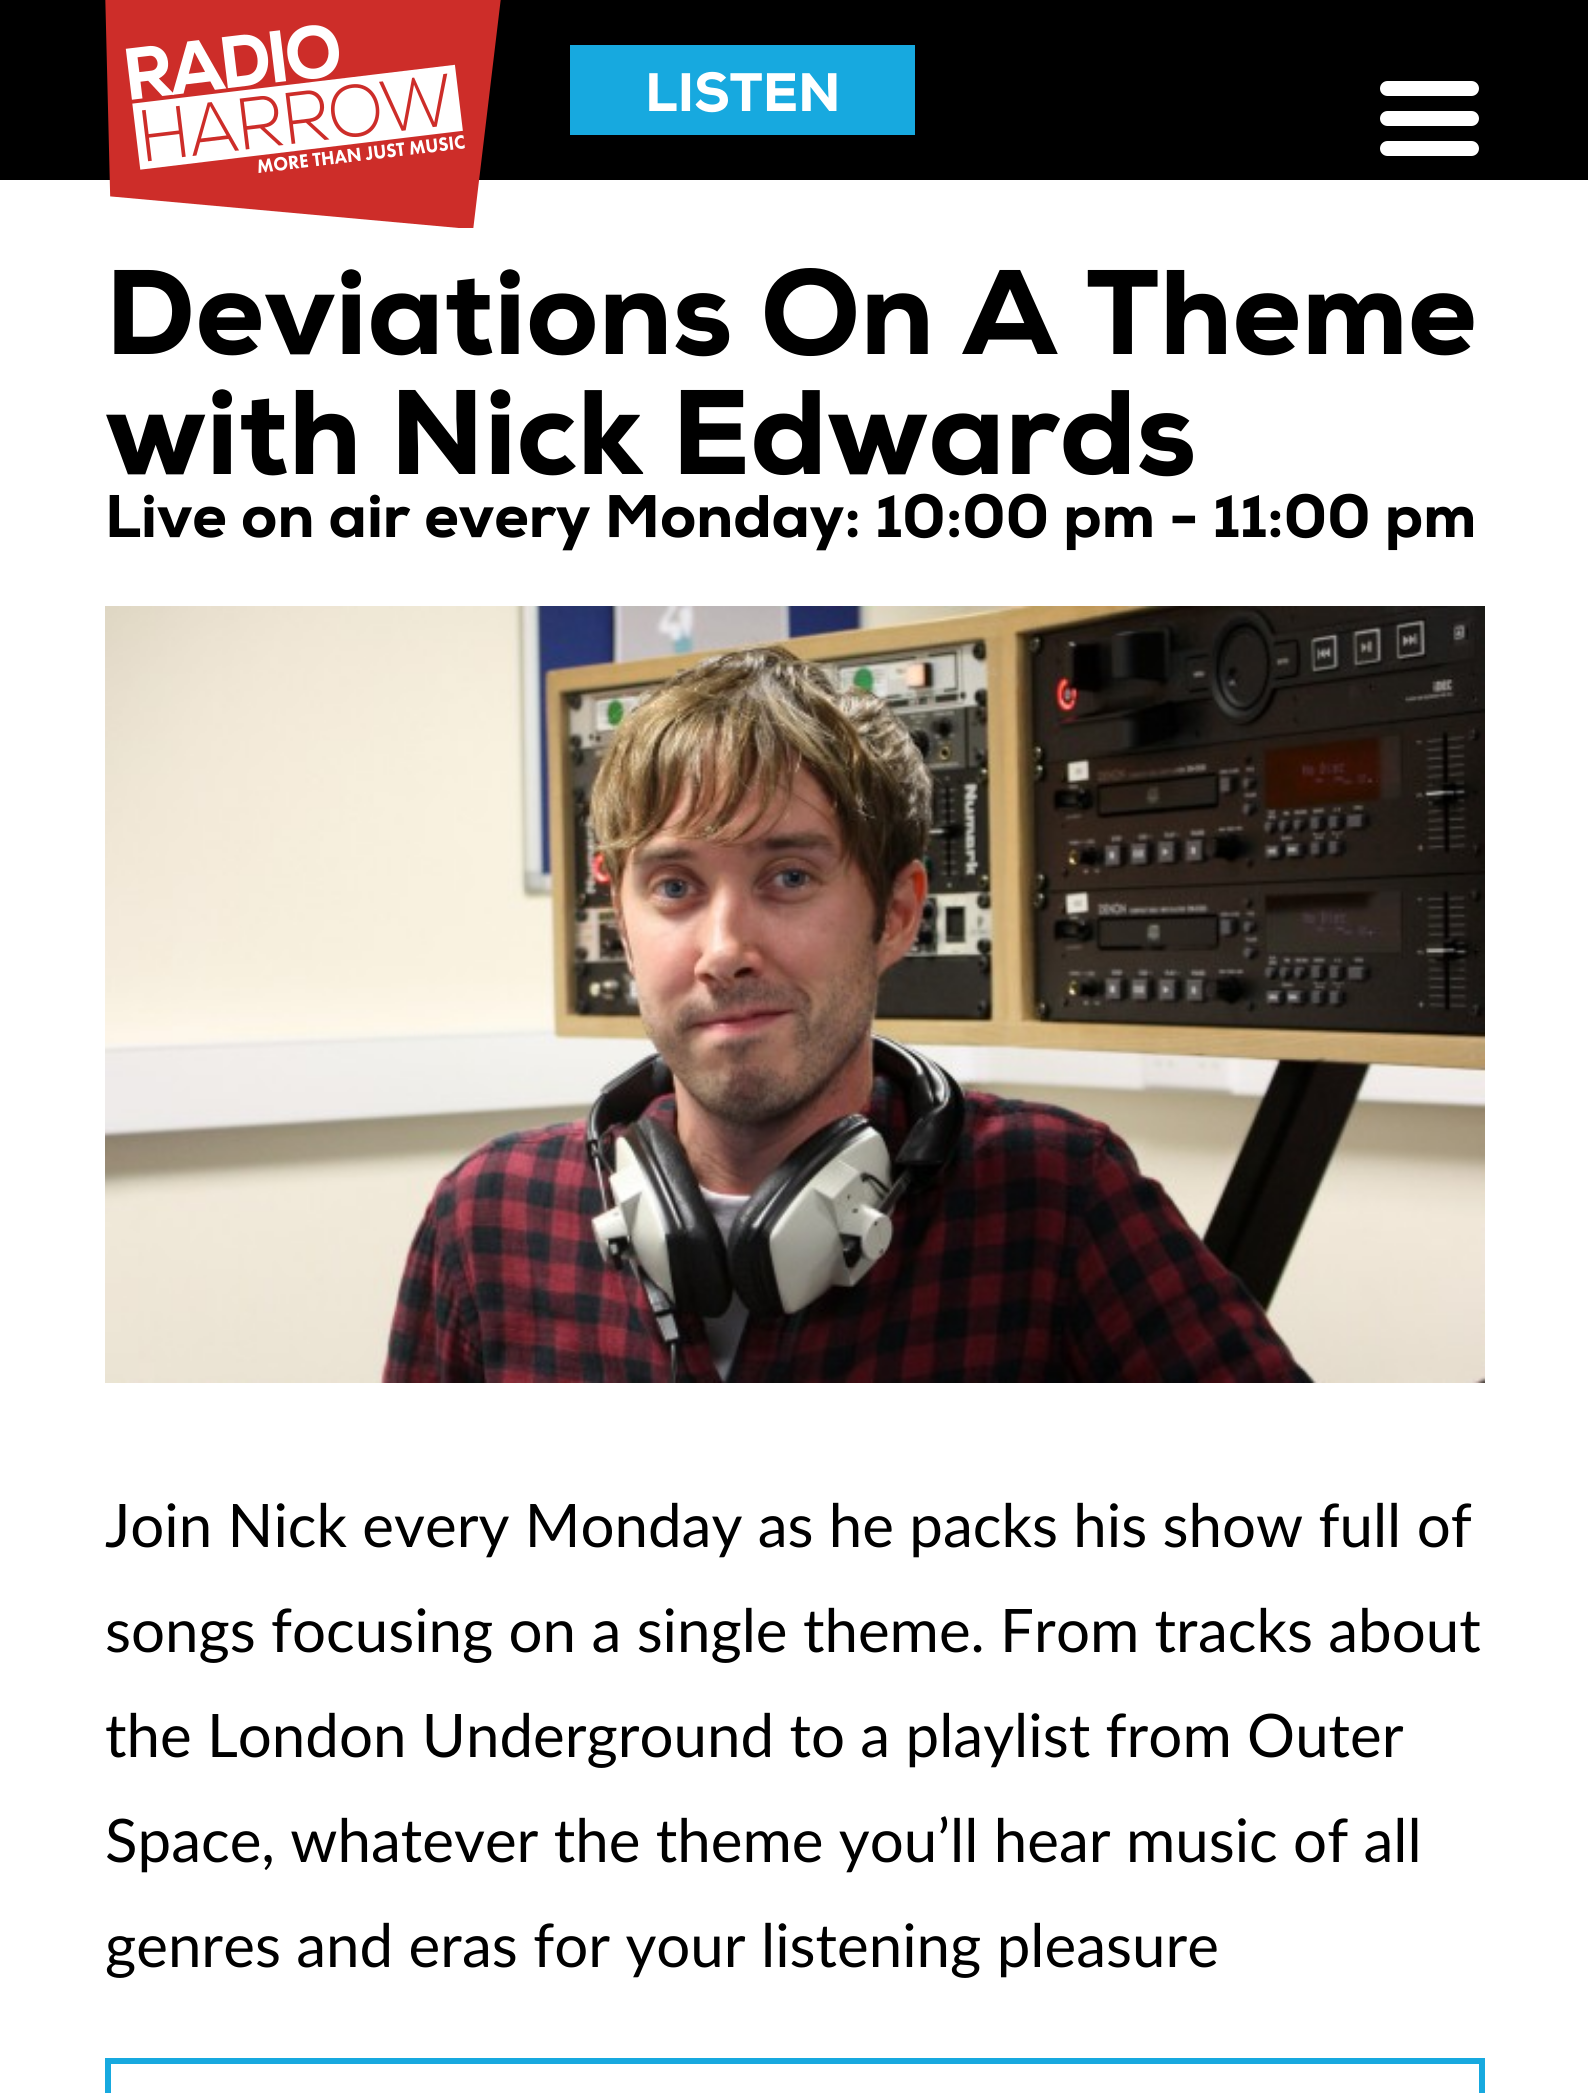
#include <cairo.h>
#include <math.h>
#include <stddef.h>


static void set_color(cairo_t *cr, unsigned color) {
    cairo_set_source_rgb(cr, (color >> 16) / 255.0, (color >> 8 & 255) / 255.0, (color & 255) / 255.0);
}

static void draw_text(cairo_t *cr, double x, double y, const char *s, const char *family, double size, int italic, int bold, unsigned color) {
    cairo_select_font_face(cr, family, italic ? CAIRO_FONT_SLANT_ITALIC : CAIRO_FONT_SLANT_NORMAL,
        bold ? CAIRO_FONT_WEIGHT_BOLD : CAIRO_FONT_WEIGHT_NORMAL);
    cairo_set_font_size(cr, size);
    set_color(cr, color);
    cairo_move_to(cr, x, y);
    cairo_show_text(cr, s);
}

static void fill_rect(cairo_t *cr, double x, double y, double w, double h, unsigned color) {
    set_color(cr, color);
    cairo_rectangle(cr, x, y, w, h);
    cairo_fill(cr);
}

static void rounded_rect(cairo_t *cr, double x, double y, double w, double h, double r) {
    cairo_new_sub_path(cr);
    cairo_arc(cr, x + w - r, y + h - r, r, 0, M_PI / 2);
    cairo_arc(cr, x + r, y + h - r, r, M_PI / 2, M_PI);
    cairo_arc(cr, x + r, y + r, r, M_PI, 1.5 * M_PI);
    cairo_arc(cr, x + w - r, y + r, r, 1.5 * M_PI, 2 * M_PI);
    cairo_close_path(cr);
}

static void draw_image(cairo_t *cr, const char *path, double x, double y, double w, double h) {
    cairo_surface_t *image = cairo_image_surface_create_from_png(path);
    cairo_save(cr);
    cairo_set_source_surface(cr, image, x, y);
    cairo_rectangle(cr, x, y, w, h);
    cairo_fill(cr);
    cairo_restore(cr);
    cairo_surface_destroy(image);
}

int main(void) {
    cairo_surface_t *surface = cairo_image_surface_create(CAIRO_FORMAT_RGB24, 1588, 2093);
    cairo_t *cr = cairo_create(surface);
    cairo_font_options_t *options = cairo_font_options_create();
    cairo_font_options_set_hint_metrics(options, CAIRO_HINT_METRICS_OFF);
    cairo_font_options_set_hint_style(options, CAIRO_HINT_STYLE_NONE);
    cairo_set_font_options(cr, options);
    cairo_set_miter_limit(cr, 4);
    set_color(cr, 0xFFFFFF);
    cairo_paint(cr);
    fill_rect(cr, 0, 0, 1588, 180, 0x000000);
    draw_image(cr, "assets/img1.png", 105, 0, 396, 228);
    fill_rect(cr, 570, 45, 345, 90, 0x17A9DF);
    draw_text(cr, 645, 111, "LISTEN", "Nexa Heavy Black", 54, 0, 0, 0xFFFFFF);
    rounded_rect(cr, 1380, 111, 99, 15, 7.5);
    cairo_fill(cr);
    rounded_rect(cr, 1380, 81, 99, 15, 7.5);
    cairo_fill(cr);
    rounded_rect(cr, 1380, 141, 99, 15, 7.5);
    cairo_fill(cr);
    draw_text(cr, 105, 354, "Deviations On A Theme", "Nexa Heavy Black", 120, 0, 0, 0x000000);
    draw_text(cr, 105, 474, "with Nick Edwards", "Nexa Heavy Black", 120, 0, 0, 0x000000);
    draw_text(cr, 105, 537, "Live on air every Monday: 10:00 pm - 11:00 pm", "Nexa Heavy Black", 60, 0, 0, 0x000000);
    draw_image(cr, "assets/img2.png", 105, 606, 1380, 777);
    draw_text(cr, 105, 1547, "Join Nick every Monday as he packs his show full of", "Lato", 60, 0, 0, 0x000000);
    draw_text(cr, 105, 1652, "songs focusing on a single theme. From tracks about", "Lato", 60, 0, 0, 0x000000);
    draw_text(cr, 105, 1757, "the London Underground to a playlist from Outer", "Lato", 60, 0, 0, 0x000000);
    draw_text(cr, 105, 1862, "Space, whatever the theme you’ll hear music of all", "Lato", 60, 0, 0, 0x000000);
    draw_text(cr, 105, 1967, "genres and eras for your listening pleasure", "Lato", 60, 0, 0, 0x000000);
    cairo_rectangle(cr, 108, 2061, 1374, 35);
    set_color(cr, 0x17A9DF);
    cairo_set_line_width(cr, 6);
    cairo_stroke(cr);
    cairo_surface_write_to_png(surface, "output.png");
    cairo_font_options_destroy(options);
    cairo_destroy(cr);
    cairo_surface_destroy(surface);
    return 0;
}
